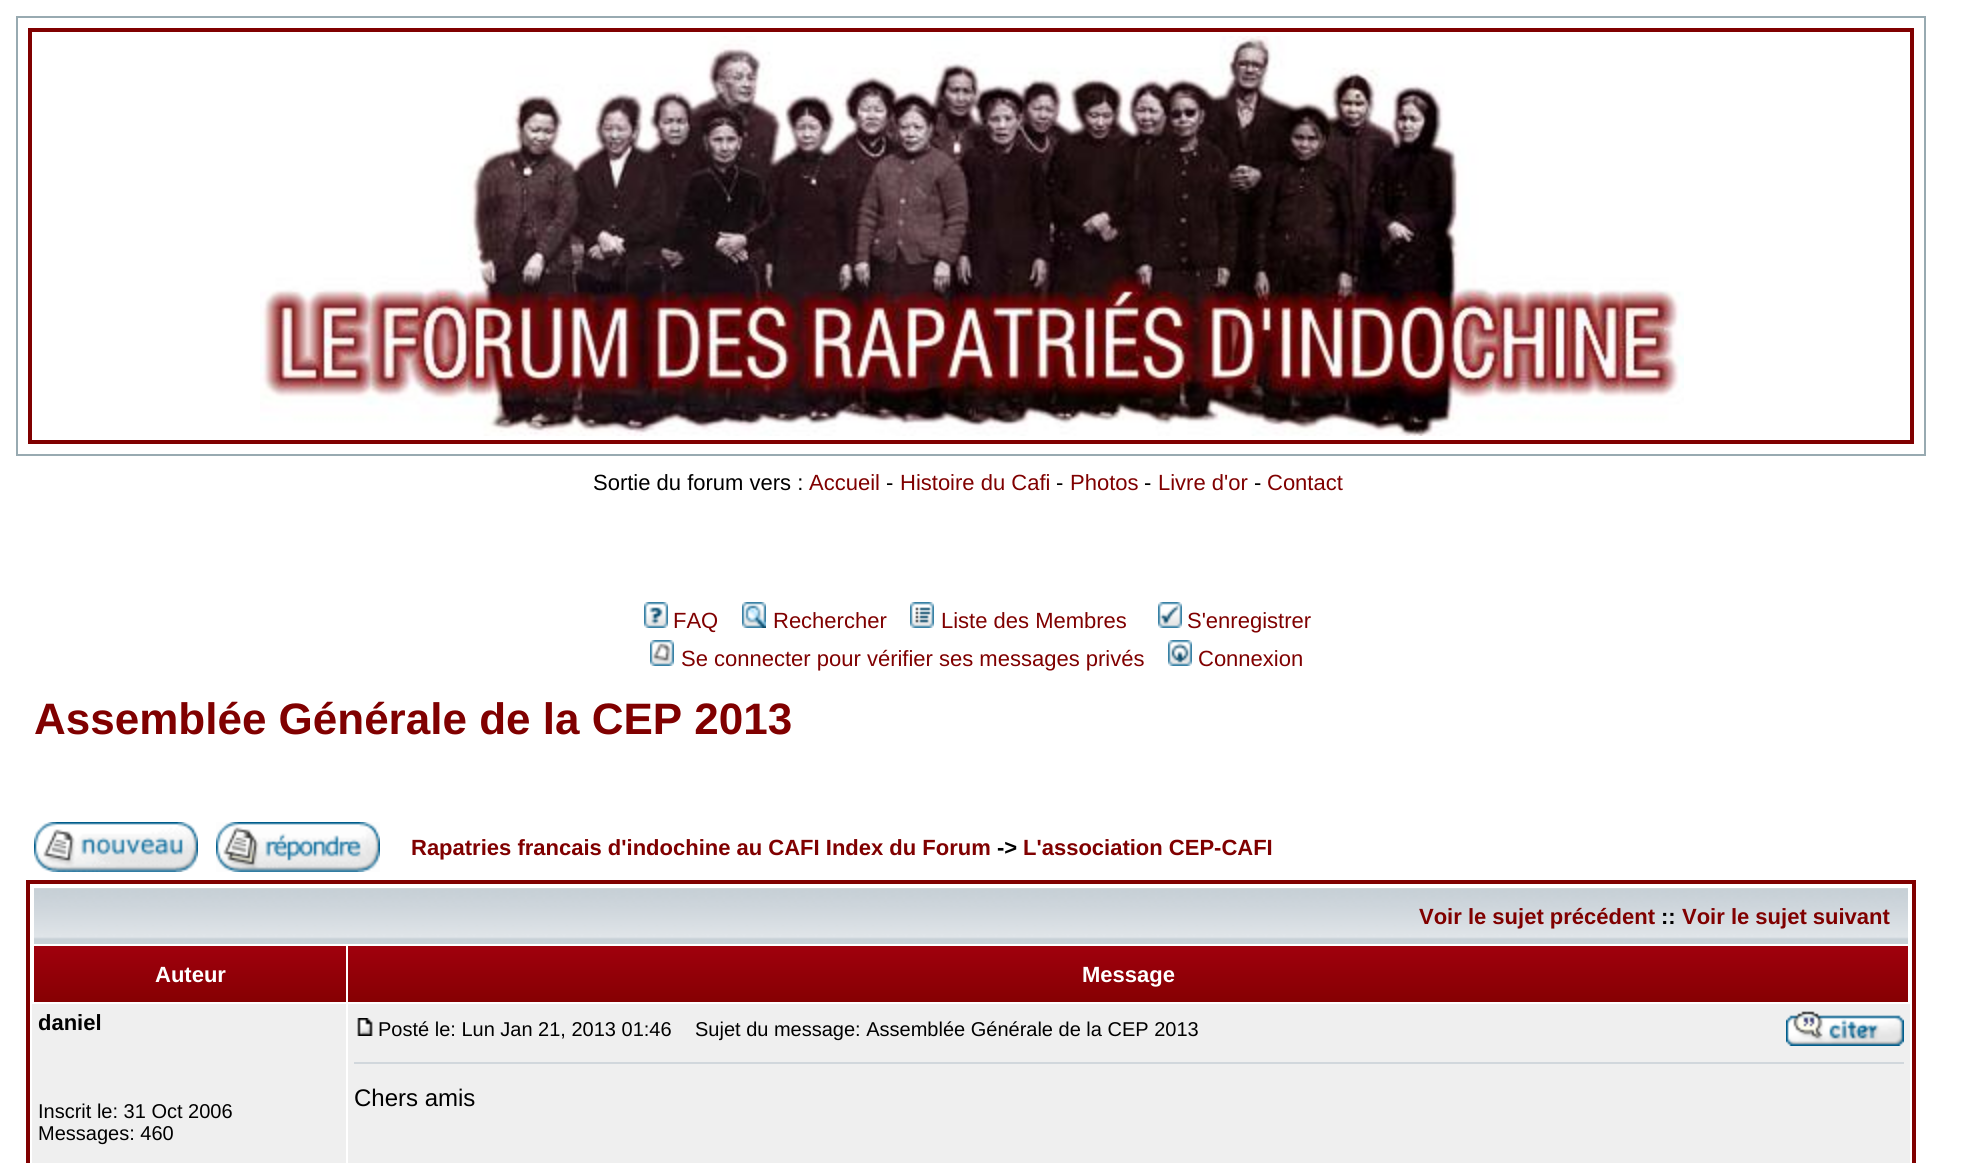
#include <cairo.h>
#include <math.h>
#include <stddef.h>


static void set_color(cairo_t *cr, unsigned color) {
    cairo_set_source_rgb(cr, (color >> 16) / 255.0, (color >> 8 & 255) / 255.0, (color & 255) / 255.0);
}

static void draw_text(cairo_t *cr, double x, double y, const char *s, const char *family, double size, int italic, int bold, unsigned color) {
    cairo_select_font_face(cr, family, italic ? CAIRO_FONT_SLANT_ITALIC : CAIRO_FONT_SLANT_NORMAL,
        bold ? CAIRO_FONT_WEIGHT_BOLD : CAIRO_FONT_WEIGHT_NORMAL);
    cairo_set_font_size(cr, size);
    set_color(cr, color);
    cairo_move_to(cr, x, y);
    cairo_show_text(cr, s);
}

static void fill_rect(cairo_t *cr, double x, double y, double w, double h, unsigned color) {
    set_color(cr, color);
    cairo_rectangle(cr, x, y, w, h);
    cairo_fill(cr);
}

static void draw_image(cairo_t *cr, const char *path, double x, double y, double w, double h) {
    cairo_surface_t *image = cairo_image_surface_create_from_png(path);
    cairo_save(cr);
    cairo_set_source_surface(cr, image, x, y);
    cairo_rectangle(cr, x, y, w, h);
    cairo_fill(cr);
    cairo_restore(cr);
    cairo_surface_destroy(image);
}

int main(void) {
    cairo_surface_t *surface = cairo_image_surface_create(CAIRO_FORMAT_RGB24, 1962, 1163);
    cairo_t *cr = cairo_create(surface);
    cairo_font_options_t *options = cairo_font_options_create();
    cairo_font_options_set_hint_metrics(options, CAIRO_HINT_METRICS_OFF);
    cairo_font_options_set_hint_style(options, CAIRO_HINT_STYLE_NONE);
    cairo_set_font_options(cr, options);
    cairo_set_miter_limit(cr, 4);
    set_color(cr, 0xFFFFFF);
    cairo_paint(cr);
    cairo_rectangle(cr, 17, 17, 1908, 438);
    set_color(cr, 0x98AAB1);
    cairo_stroke(cr);
    cairo_rectangle(cr, 30, 30, 1882, 412);
    set_color(cr, 0x800000);
    cairo_set_line_width(cr, 4);
    cairo_stroke(cr);
    draw_image(cr, "assets/img1.png", 260, 36, 1424, 400);
    draw_text(cr, 593, 490, "Sortie du forum vers :", "Liberation Sans", 22, 0, 0, 0x000000);
    draw_text(cr, 809, 490, "Accueil", "Liberation Sans", 22, 0, 0, 0x800000);
    draw_text(cr, 886, 490, "-", "Liberation Sans", 22, 0, 0, 0x000000);
    draw_text(cr, 900, 490, "Histoire du Cafi", "Liberation Sans", 22, 0, 0, 0x800000);
    draw_text(cr, 1056, 490, "-", "Liberation Sans", 22, 0, 0, 0x000000);
    draw_text(cr, 1070, 490, "Photos", "Liberation Sans", 22, 0, 0, 0x800000);
    draw_text(cr, 1144, 490, "-", "Liberation Sans", 22, 0, 0, 0x000000);
    draw_text(cr, 1158, 490, "Livre d'or", "Liberation Sans", 22, 0, 0, 0x800000);
    draw_text(cr, 1254, 490, "-", "Liberation Sans", 22, 0, 0, 0x000000);
    draw_text(cr, 1267, 490, "Contact", "Liberation Sans", 22, 0, 0, 0x800000);
    draw_image(cr, "assets/img2.png", 644, 602, 24, 26);
    draw_text(cr, 673, 628, "FAQ", "Liberation Sans", 22, 0, 0, 0x800000);
    draw_image(cr, "assets/img3.png", 742, 602, 24, 26);
    draw_text(cr, 773, 628, "Rechercher", "Liberation Sans", 22, 0, 0, 0x800000);
    draw_image(cr, "assets/img4.png", 910, 602, 24, 26);
    draw_text(cr, 941, 628, "Liste des Membres", "Liberation Sans", 22, 0, 0, 0x800000);
    draw_image(cr, "assets/img5.png", 1158, 602, 24, 26);
    draw_text(cr, 1187, 628, "S'enregistrer", "Liberation Sans", 22, 0, 0, 0x800000);
    draw_image(cr, "assets/img6.png", 650, 640, 24, 26);
    draw_text(cr, 681, 666, "Se connecter pour vérifier ses messages privés", "Liberation Sans", 22, 0, 0, 0x800000);
    draw_image(cr, "assets/img7.png", 1168, 640, 24, 26);
    draw_text(cr, 1198, 666, "Connexion", "Liberation Sans", 22, 0, 0, 0x800000);
    draw_text(cr, 34, 734, "Assemblée Générale de la CEP 2013", "Liberation Sans", 44, 0, 1, 0x800000);
    draw_image(cr, "assets/img8.png", 34, 822, 164, 50);
    draw_image(cr, "assets/img9.png", 216, 822, 164, 50);
    draw_text(cr, 411, 855, "Rapatries francais d'indochine au CAFI Index du Forum", "Liberation Sans", 22, 0, 1, 0x800000);
    draw_text(cr, 997, 855, "->", "Liberation Sans", 22, 0, 1, 0x000000);
    draw_text(cr, 1023, 855, "L'association CEP-CAFI", "Liberation Sans", 22, 0, 1, 0x800000);
    cairo_rectangle(cr, 28, 882, 1886, 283);
    cairo_stroke(cr);
    draw_image(cr, "assets/img10.png", 34, 888, 1874, 56);
    draw_text(cr, 1419, 924, "Voir le sujet précédent", "Liberation Sans", 22, 0, 1, 0x800000);
    draw_text(cr, 1661, 924, "::", "Liberation Sans", 22, 0, 1, 0x000000);
    draw_text(cr, 1682, 924, "Voir le sujet suivant", "Liberation Sans", 22, 0, 1, 0x800000);
    draw_image(cr, "assets/img11.png", 34, 946, 312, 56);
    draw_text(cr, 155, 982, "Auteur", "Liberation Sans", 22, 0, 1, 0xFFFFFF);
    draw_image(cr, "assets/img12.png", 348, 946, 1560, 56);
    draw_text(cr, 1082, 982, "Message", "Liberation Sans", 22, 0, 1, 0xFFFFFF);
    fill_rect(cr, 32, 1004, 314, 159, 0xEFEFEF);
    draw_text(cr, 38, 1030, "daniel", "Liberation Sans", 22, 0, 1, 0x000000);
    draw_text(cr, 38, 1118, "Inscrit le: 31 Oct 2006", "Liberation Sans", 20, 0, 0, 0x000000);
    draw_text(cr, 38, 1140, "Messages: 460", "Liberation Sans", 20, 0, 0, 0x000000);
    fill_rect(cr, 348, 1004, 1562, 159, 0xEFEFEF);
    draw_image(cr, "assets/img13.png", 357, 1018, 16, 18);
    draw_text(cr, 378, 1036, "Posté le: Lun Jan 21, 2013 01:46", "Liberation Sans", 20, 0, 0, 0x000000);
    draw_text(cr, 695, 1036, "Sujet du message: Assemblée Générale de la CEP 2013", "Liberation Sans", 20, 0, 0, 0x000000);
    draw_image(cr, "assets/img14.png", 1786, 1011, 118, 35);
    fill_rect(cr, 354, 1062, 1550, 2, 0xD1D7DC);
    draw_text(cr, 354, 1106, "Chers amis", "Liberation Sans", 24, 0, 0, 0x000000);
    cairo_surface_write_to_png(surface, "output.png");
    cairo_font_options_destroy(options);
    cairo_destroy(cr);
    cairo_surface_destroy(surface);
    return 0;
}
